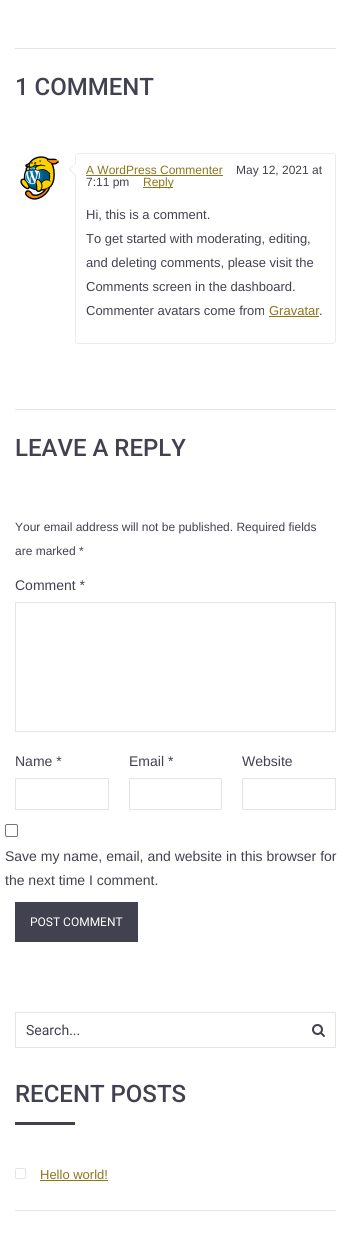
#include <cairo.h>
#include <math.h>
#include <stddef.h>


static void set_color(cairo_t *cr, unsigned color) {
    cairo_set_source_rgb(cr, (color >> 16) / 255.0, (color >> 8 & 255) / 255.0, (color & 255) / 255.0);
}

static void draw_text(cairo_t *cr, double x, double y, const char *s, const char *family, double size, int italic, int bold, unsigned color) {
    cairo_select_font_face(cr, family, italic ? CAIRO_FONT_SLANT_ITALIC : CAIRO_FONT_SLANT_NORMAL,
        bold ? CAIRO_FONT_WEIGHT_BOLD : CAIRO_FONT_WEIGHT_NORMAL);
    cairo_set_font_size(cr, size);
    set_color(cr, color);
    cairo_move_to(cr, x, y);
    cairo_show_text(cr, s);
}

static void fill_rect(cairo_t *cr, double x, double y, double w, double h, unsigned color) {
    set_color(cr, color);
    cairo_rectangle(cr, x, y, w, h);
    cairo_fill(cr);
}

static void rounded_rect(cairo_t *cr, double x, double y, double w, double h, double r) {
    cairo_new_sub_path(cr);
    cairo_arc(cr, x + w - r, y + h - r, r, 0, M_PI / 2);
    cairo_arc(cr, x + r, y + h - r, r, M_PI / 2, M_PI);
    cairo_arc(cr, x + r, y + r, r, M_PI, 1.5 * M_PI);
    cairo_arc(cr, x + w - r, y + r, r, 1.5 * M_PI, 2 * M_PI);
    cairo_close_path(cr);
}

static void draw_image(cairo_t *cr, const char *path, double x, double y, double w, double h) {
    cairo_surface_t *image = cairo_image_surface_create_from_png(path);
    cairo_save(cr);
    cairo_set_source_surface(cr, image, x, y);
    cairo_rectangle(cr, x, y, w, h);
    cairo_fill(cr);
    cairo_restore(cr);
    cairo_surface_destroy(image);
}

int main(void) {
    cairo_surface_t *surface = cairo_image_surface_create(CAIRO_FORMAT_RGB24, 351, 1236);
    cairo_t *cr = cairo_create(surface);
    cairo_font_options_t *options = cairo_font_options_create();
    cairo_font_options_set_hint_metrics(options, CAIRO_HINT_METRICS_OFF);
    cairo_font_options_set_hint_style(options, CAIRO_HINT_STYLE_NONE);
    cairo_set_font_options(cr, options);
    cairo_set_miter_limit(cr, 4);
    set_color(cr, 0xFFFFFF);
    cairo_paint(cr);
    fill_rect(cr, 15, 48, 321, 1, 0xE5E5E5);
    draw_text(cr, 15, 95, "1 COMMENT", "Roboto Medium", 24, 0, 0, 0x42414F);
    draw_image(cr, "assets/img1.png", 20, 156, 39, 44);
    rounded_rect(cr, 75.5, 153.5, 260, 190, 2.5);
    set_color(cr, 0xECECEC);
    cairo_set_line_width(cr, 1);
    cairo_stroke(cr);
    draw_text(cr, 86, 174, "A WordPress Commenter", "Liberation Sans", 12, 0, 0, 0x907418);
    fill_rect(cr, 86, 175, 137, 1, 0x907418);
    draw_text(cr, 236, 174, "May 12, 2021 at", "Liberation Sans", 12, 0, 0, 0x42414F);
    draw_text(cr, 86, 186, "7:11 pm", "Liberation Sans", 12, 0, 0, 0x42414F);
    fill_rect(cr, 143, 187, 30, 1, 0x907418);
    draw_text(cr, 143, 186, "Reply", "Liberation Sans", 12, 0, 0, 0x907418);
    draw_text(cr, 86, 219, "Hi, this is a comment.", "Liberation Sans", 13, 0, 0, 0x42414F);
    draw_text(cr, 86, 243, "To get started with moderating, editing,", "Liberation Sans", 13, 0, 0, 0x42414F);
    draw_text(cr, 86, 267, "and deleting comments, please visit the", "Liberation Sans", 13, 0, 0, 0x42414F);
    draw_text(cr, 86, 291, "Comments screen in the dashboard.", "Liberation Sans", 13, 0, 0, 0x42414F);
    draw_text(cr, 86, 315, "Commenter avatars come from", "Liberation Sans", 13, 0, 0, 0x42414F);
    set_color(cr, 0xFFFFFF);
    cairo_new_path(cr);
    cairo_move_to(cr, 76, 162.5);
    cairo_line_to(cr, 83, 169.5);
    cairo_line_to(cr, 76, 176.5);
    cairo_line_to(cr, 69, 169.5);
    cairo_close_path(cr);
    cairo_fill(cr);
    set_color(cr, 0xECECEC);
    cairo_new_path(cr);
    cairo_move_to(cr, 69.5, 168.5);
    cairo_line_to(cr, 76.5, 175.5);
    cairo_line_to(cr, 76, 176.5);
    cairo_line_to(cr, 69, 169.5);
    cairo_close_path(cr);
    cairo_fill(cr);
    cairo_new_path(cr);
    cairo_move_to(cr, 76, 162.5);
    cairo_line_to(cr, 76.5, 163);
    cairo_line_to(cr, 69.5, 170);
    cairo_line_to(cr, 69, 169.5);
    cairo_close_path(cr);
    cairo_fill(cr);
    draw_text(cr, 269, 315, "Gravatar", "Liberation Sans", 13, 0, 0, 0x907418);
    fill_rect(cr, 269, 316, 50, 1, 0x907418);
    draw_text(cr, 319, 315, ".", "Liberation Sans", 13, 0, 0, 0x42414F);
    fill_rect(cr, 15, 409, 321, 1, 0xE5E5E5);
    draw_text(cr, 15, 456, "LEAVE A REPLY", "Roboto Medium", 24, 0, 0, 0x42414F);
    draw_text(cr, 15, 531, "Your email address will not be published. Required fields", "Liberation Sans", 12, 0, 0, 0x42414F);
    draw_text(cr, 15, 555, "are marked *", "Liberation Sans", 12, 0, 0, 0x42414F);
    draw_text(cr, 15, 590, "Comment *", "Liberation Sans", 14, 0, 0, 0x42414F);
    cairo_rectangle(cr, 15.5, 602.5, 320, 129);
    set_color(cr, 0xE5E5E5);
    cairo_stroke(cr);
    draw_text(cr, 15, 766, "Name *", "Liberation Sans", 14, 0, 0, 0x42414F);
    cairo_rectangle(cr, 15.5, 778.5, 93, 31);
    set_color(cr, 0xE5E5E5);
    cairo_stroke(cr);
    draw_text(cr, 129, 766, "Email *", "Liberation Sans", 14, 0, 0, 0x42414F);
    cairo_rectangle(cr, 129.5, 778.5, 92, 31);
    set_color(cr, 0xE5E5E5);
    cairo_stroke(cr);
    draw_text(cr, 242, 766, "Website", "Liberation Sans", 14, 0, 0, 0x42414F);
    cairo_rectangle(cr, 242.5, 778.5, 93, 31);
    set_color(cr, 0xE5E5E5);
    cairo_stroke(cr);
    rounded_rect(cr, 5.5, 824.5, 12, 12, 1.5);
    set_color(cr, 0x767676);
    cairo_stroke(cr);
    draw_text(cr, 5, 861, "Save my name, email, and website in this browser for", "Liberation Sans", 14, 0, 0, 0x42414F);
    draw_text(cr, 5, 885, "the next time I comment.", "Liberation Sans", 14, 0, 0, 0x42414F);
    fill_rect(cr, 15, 902, 123, 40, 0x42414F);
    draw_text(cr, 30, 926, "POST COMMENT", "Roboto", 12, 0, 0, 0xFFFFFF);
    cairo_rectangle(cr, 15.5, 1012.5, 320, 35);
    set_color(cr, 0xE5E5E5);
    cairo_stroke(cr);
    draw_text(cr, 26, 1035, "Search...", "Roboto", 14, 0, 0, 0x42414F);
    draw_image(cr, "assets/img2.png", 312, 1024, 13, 13);
    draw_text(cr, 15, 1102, "RECENT POSTS", "Roboto Medium", 24, 0, 0, 0x42414F);
    fill_rect(cr, 15, 1122, 60, 3, 0x42414F);
    fill_rect(cr, 15, 1210, 321, 1, 0xE5E5E5);
    rounded_rect(cr, 15.5, 1168.5, 10, 10, 1.5);
    cairo_stroke(cr);
    draw_text(cr, 40, 1179, "Hello world!", "Liberation Sans", 13, 0, 0, 0x907418);
    fill_rect(cr, 40, 1180, 68, 1, 0x907418);
    cairo_surface_write_to_png(surface, "output.png");
    cairo_font_options_destroy(options);
    cairo_destroy(cr);
    cairo_surface_destroy(surface);
    return 0;
}
